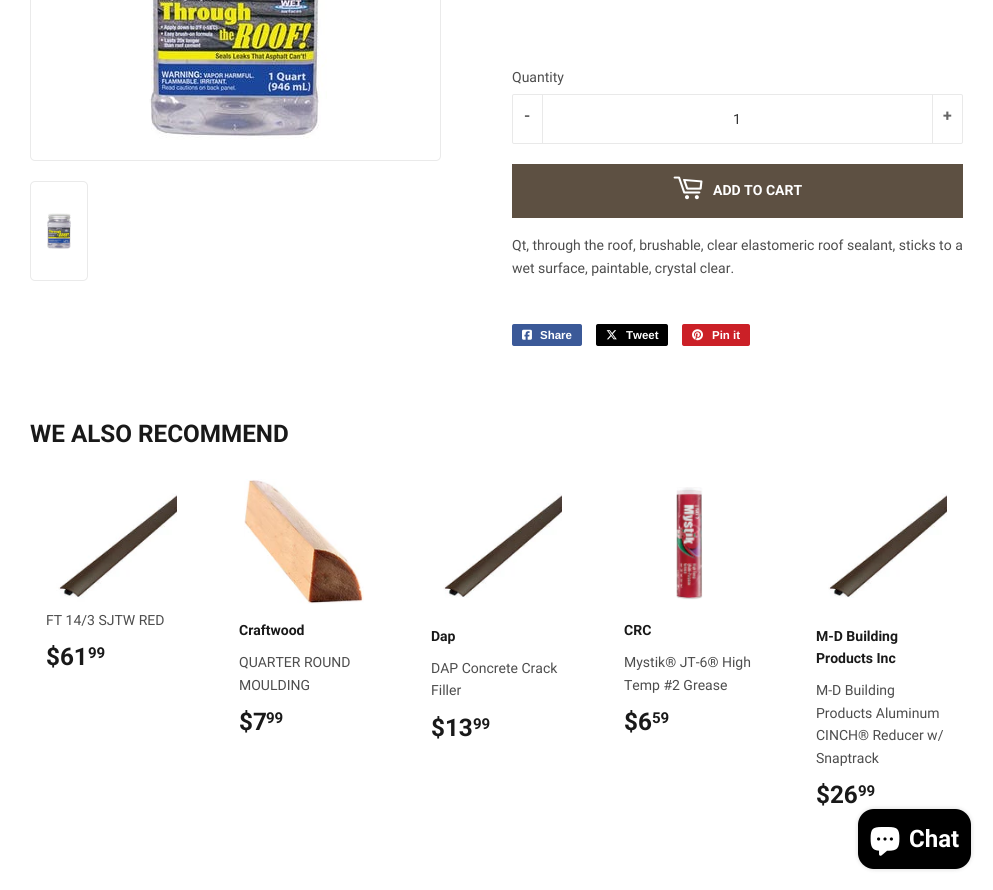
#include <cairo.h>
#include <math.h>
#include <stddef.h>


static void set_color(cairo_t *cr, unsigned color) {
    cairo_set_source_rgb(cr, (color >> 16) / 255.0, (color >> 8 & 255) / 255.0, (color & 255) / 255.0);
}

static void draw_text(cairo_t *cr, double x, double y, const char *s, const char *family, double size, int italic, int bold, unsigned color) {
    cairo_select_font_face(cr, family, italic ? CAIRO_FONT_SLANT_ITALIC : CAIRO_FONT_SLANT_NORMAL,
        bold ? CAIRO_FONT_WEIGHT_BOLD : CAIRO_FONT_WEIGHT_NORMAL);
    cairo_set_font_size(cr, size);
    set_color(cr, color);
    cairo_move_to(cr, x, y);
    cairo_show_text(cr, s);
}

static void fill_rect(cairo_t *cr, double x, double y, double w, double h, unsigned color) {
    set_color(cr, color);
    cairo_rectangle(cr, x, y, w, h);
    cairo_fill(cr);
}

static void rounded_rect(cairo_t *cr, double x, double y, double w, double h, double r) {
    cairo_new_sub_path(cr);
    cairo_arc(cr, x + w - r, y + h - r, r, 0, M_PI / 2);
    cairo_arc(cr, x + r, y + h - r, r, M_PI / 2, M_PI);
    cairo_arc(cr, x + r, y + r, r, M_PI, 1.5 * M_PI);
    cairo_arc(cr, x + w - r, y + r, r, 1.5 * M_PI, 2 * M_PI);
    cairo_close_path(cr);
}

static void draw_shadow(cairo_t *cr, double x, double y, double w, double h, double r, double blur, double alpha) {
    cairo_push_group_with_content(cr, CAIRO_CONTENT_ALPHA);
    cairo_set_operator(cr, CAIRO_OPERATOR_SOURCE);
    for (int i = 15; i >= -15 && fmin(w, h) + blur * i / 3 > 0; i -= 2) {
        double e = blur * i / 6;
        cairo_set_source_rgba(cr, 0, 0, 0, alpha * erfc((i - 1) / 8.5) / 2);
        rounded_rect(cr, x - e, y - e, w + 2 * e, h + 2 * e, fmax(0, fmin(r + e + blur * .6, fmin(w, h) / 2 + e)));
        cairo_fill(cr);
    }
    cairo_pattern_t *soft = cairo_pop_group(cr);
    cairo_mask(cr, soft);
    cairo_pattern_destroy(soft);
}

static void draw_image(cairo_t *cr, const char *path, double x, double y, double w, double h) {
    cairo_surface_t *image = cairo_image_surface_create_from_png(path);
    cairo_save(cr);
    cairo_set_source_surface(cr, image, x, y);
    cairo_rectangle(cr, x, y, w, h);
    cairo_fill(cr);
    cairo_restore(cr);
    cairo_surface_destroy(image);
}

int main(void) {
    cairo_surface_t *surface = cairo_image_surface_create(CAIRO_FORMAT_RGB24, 993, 890);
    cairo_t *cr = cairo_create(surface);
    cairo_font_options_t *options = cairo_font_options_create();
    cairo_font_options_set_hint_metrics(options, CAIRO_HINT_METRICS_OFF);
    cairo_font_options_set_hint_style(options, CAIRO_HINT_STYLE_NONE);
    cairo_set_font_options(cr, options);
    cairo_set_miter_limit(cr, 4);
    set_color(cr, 0xFFFFFF);
    cairo_paint(cr);
    rounded_rect(cr, 30.5, -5.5, 410, 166, 4.5);
    set_color(cr, 0xEAEAEA);
    cairo_set_line_width(cr, 1);
    cairo_stroke(cr);
    draw_image(cr, "assets/img1.png", 149, 0, 178, 140);
    rounded_rect(cr, 30.5, 181.5, 57, 99, 4.5);
    cairo_stroke(cr);
    draw_image(cr, "assets/img2.png", 47, 213, 24, 36);
    draw_text(cr, 512, 82, "Quantity", "Roboto", 14, 0, 0, 0x4D4D4D);
    rounded_rect(cr, 512.5, 94.5, 450, 49, 1.5);
    set_color(cr, 0xE9E9E9);
    cairo_stroke(cr);
    fill_rect(cr, 542, 95, 1, 48, 0xE9E9E9);
    draw_text(cr, 524, 121, "-", "Roboto", 16, 0, 1, 0x666666);
    draw_text(cr, 733, 124, "1", "Roboto", 14, 0, 0, 0x333333);
    fill_rect(cr, 932, 95, 1, 48, 0xE9E9E9);
    draw_text(cr, 943, 121, "+", "Roboto", 16, 0, 1, 0x666666);
    fill_rect(cr, 512, 164, 451, 54, 0x5D5042);
    draw_image(cr, "assets/img3.png", 673, 176, 30, 24);
    draw_text(cr, 713, 195, "ADD TO CART", "Roboto", 14, 0, 1, 0xFFFFFF);
    draw_text(cr, 512, 250, "Qt, through the roof, brushable, clear elastomeric roof sealant, sticks to a", "Roboto", 14, 0, 0, 0x4D4D4D);
    draw_text(cr, 512, 273, "wet surface, paintable, crystal clear.", "Roboto", 14, 0, 0, 0x4D4D4D);
    set_color(cr, 0x3B5998);
    rounded_rect(cr, 512, 324, 70, 22, 2);
    cairo_fill(cr);
    draw_image(cr, "assets/img4.png", 522, 329, 10, 11);
    draw_text(cr, 540, 339, "Share", "Liberation Sans", 11.5, 0, 1, 0xFFFFFF);
    set_color(cr, 0x000000);
    rounded_rect(cr, 596, 324, 72, 22, 2);
    cairo_fill(cr);
    draw_image(cr, "assets/img5.png", 606, 330, 11, 10);
    draw_text(cr, 626, 339, "Tweet", "Liberation Sans", 11.5, 0, 1, 0xFFFFFF);
    set_color(cr, 0xCB2027);
    rounded_rect(cr, 682, 324, 68, 22, 2);
    cairo_fill(cr);
    draw_image(cr, "assets/img6.png", 692, 329, 11, 12);
    draw_text(cr, 712, 339, "Pin it", "Liberation Sans", 11.5, 0, 1, 0xFFFFFF);
    draw_text(cr, 30, 442, "WE ALSO RECOMMEND", "Roboto", 24.25, 0, 1, 0x191919);
    draw_image(cr, "assets/img7.png", 46, 493, 131, 111);
    draw_text(cr, 46, 625, "FT 14/3 SJTW RED", "Roboto", 14, 0, 0, 0x4D4D4D);
    draw_text(cr, 46, 665, "$61", "Roboto", 24.25, 0, 1, 0x191919);
    draw_text(cr, 88, 658, "99", "Roboto", 15, 0, 1, 0x191919);
    draw_image(cr, "assets/img8.png", 244, 479, 120, 125);
    draw_text(cr, 239, 635, "Craftwood", "Roboto", 14, 0, 1, 0x191919);
    draw_text(cr, 239, 667, "QUARTER ROUND", "Roboto", 14, 0, 0, 0x4D4D4D);
    draw_text(cr, 239, 690, "MOULDING", "Roboto", 14, 0, 0, 0x4D4D4D);
    draw_text(cr, 239, 730, "$7", "Roboto", 24.25, 0, 1, 0x191919);
    draw_text(cr, 266, 723, "99", "Roboto", 15, 0, 1, 0x191919);
    draw_image(cr, "assets/img9.png", 443, 493, 119, 105);
    draw_text(cr, 431, 641, "Dap", "Roboto", 14, 0, 1, 0x191919);
    draw_text(cr, 431, 673, "DAP Concrete Crack", "Roboto", 14, 0, 0, 0x4D4D4D);
    draw_text(cr, 431, 695, "Filler", "Roboto", 14, 0, 0, 0x4D4D4D);
    draw_text(cr, 431, 736, "$13", "Roboto", 24.25, 0, 1, 0x191919);
    draw_text(cr, 473, 729, "99", "Roboto", 15, 0, 1, 0x191919);
    draw_image(cr, "assets/img10.png", 676, 487, 27, 113);
    draw_text(cr, 624, 635, "CRC", "Roboto", 14, 0, 1, 0x191919);
    draw_text(cr, 624, 667, "Mystik® JT-6® High", "Roboto", 14, 0, 0, 0x4D4D4D);
    draw_text(cr, 624, 690, "Temp #2 Grease", "Roboto", 14, 0, 0, 0x4D4D4D);
    draw_text(cr, 624, 730, "$6", "Roboto", 24.25, 0, 1, 0x191919);
    draw_text(cr, 652, 723, "59", "Roboto", 15, 0, 1, 0x191919);
    draw_image(cr, "assets/img9.png", 828, 493, 119, 105);
    draw_text(cr, 816, 641, "M-D Building", "Roboto", 14, 0, 1, 0x191919);
    draw_text(cr, 816, 663, "Products Inc", "Roboto", 14, 0, 1, 0x191919);
    draw_text(cr, 816, 695, "M-D Building", "Roboto", 14, 0, 0, 0x4D4D4D);
    draw_text(cr, 816, 718, "Products Aluminum", "Roboto", 14, 0, 0, 0x4D4D4D);
    draw_text(cr, 816, 740, "CINCH® Reducer w/", "Roboto", 14, 0, 0, 0x4D4D4D);
    draw_text(cr, 816, 763, "Snaptrack", "Roboto", 14, 0, 0, 0x4D4D4D);
    draw_text(cr, 816, 803, "$26", "Roboto", 24.25, 0, 1, 0x191919);
    draw_text(cr, 858, 796, "99", "Roboto", 15, 0, 1, 0x191919);
    set_color(cr, 0x000000);
    draw_shadow(cr, 858, 809, 113, 60, 16, 2.5, 0.15);
    set_color(cr, 0x000000);
    rounded_rect(cr, 858, 809, 113, 60, 16);
    cairo_fill(cr);
    draw_image(cr, "assets/img11.png", 870, 827, 30, 29);
    draw_text(cr, 909, 847, "Chat", "Roboto", 24, 0, 1, 0xFFFFFF);
    cairo_surface_write_to_png(surface, "output.png");
    cairo_font_options_destroy(options);
    cairo_destroy(cr);
    cairo_surface_destroy(surface);
    return 0;
}
